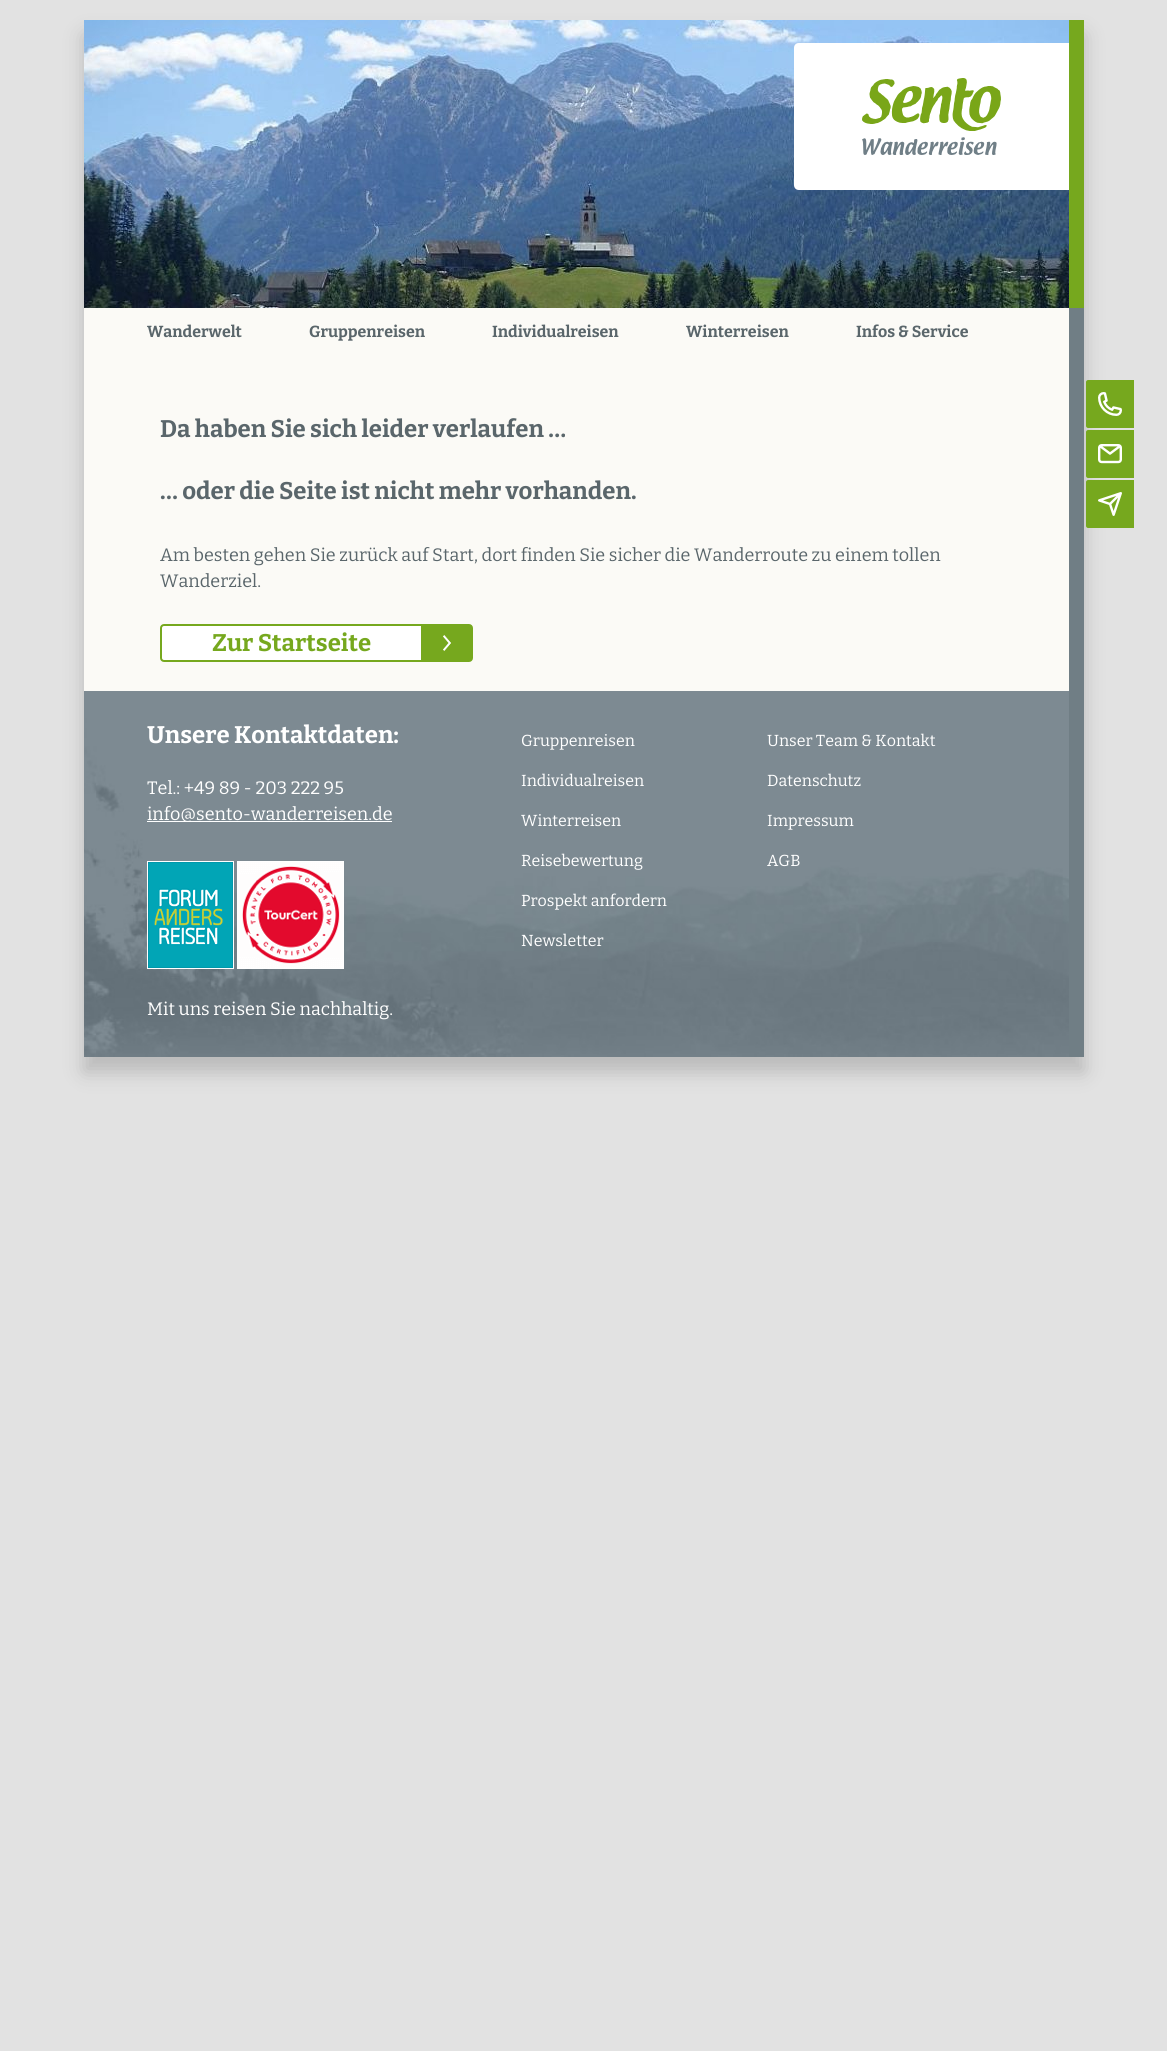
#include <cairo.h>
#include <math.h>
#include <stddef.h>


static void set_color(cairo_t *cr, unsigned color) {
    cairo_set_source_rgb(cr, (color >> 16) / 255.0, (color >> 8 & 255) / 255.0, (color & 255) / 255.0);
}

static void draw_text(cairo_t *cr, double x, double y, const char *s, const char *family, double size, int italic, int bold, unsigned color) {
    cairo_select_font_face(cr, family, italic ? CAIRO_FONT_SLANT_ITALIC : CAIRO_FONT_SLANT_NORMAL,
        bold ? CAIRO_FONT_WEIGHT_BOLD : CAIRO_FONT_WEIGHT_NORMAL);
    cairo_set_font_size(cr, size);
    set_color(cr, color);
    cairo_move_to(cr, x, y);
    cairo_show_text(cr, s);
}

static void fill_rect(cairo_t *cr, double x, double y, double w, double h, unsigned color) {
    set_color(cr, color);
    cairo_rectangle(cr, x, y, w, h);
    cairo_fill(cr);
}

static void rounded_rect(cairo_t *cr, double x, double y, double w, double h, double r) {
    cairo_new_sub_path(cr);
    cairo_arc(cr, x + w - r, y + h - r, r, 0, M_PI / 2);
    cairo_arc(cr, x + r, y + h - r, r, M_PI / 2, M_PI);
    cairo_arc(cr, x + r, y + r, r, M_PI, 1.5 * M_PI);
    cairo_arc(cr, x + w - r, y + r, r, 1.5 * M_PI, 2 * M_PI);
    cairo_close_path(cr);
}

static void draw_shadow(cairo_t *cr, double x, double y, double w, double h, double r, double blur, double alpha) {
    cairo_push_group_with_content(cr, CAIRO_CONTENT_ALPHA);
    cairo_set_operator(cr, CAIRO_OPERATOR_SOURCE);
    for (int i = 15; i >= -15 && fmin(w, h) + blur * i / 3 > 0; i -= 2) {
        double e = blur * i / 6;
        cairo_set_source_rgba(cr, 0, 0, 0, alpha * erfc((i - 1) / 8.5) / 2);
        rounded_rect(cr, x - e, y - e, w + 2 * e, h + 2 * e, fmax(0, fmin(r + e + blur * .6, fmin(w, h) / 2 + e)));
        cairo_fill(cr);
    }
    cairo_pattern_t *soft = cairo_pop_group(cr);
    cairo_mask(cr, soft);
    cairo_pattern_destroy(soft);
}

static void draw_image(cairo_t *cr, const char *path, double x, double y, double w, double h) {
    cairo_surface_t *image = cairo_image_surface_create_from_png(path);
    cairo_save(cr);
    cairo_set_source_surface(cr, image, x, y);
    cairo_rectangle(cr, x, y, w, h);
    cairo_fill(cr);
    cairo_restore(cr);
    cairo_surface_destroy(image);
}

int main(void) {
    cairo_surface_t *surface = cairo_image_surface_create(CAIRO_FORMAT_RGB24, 1167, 2051);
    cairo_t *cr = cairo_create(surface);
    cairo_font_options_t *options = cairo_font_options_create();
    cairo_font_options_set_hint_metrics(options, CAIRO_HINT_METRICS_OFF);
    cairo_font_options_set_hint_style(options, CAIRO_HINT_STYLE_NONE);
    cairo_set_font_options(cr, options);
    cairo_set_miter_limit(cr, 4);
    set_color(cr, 0xE2E2E2);
    cairo_paint(cr);
    set_color(cr, 0x000000);
    draw_shadow(cr, 84, 35, 1000, 1037, 0, 10, 0.18);
    fill_rect(cr, 84, 308, 985, 383, 0xFBFAF6);
    draw_image(cr, "assets/img1.png", 84, 20, 985, 288);
    fill_rect(cr, 1069, 20, 15, 288, 0x76A81E);
    set_color(cr, 0xFFFFFF);
    cairo_new_path(cr);
    cairo_move_to(cr, 799, 43);
    cairo_line_to(cr, 1069, 43);
    cairo_line_to(cr, 1069, 190);
    cairo_line_to(cr, 799, 190);
    cairo_curve_to(cr, 796, 190, 794, 188, 794, 185);
    cairo_line_to(cr, 794, 48);
    cairo_curve_to(cr, 794, 45, 796, 43, 799, 43);
    cairo_close_path(cr);
    cairo_fill(cr);
    draw_image(cr, "assets/img2.png", 862, 78, 139, 77);
    draw_text(cr, 147, 337, "Wanderwelt", "Bitter Thin", 16, 0, 0, 0x5A666B);
    draw_text(cr, 309, 337, "Gruppenreisen", "Bitter Thin", 16, 0, 0, 0x5A666B);
    draw_text(cr, 492, 337, "Individualreisen", "Bitter Thin", 16, 0, 0, 0x5A666B);
    draw_text(cr, 686, 337, "Winterreisen", "Bitter Thin", 16, 0, 0, 0x5A666B);
    draw_text(cr, 856, 337, "Infos & Service", "Bitter Thin", 16, 0, 0, 0x5A666B);
    fill_rect(cr, 1069, 308, 15, 749, 0x707E85);
    draw_text(cr, 160, 437, "Da haben Sie sich leider verlaufen …", "Bitter Thin", 24, 0, 0, 0x5A666B);
    draw_text(cr, 160, 499, "… oder die Seite ist nicht mehr vorhanden.", "Bitter Thin", 24, 0, 0, 0x5A666B);
    draw_text(cr, 160, 561, "Am besten gehen Sie zurück auf Start, dort finden Sie sicher die Wanderroute zu einem tollen", "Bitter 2 Thin", 18, 0, 0, 0x5A666B);
    draw_text(cr, 160, 587, "Wanderziel.", "Bitter 2 Thin", 18, 0, 0, 0x5A666B);
    set_color(cr, 0xFFFFFF);
    rounded_rect(cr, 161, 625, 311, 36, 3);
    cairo_fill_preserve(cr);
    set_color(cr, 0x76A81E);
    cairo_stroke(cr);
    draw_text(cr, 212, 651, "Zur Startseite", "Bitter Thin", 24, 0, 0, 0x76A81E);
    fill_rect(cr, 421, 626, 50, 34, 0x76A81E);
    draw_image(cr, "assets/img3.png", 443, 635, 8, 16);
    cairo_new_path(cr);
    cairo_move_to(cr, 1088, 380);
    cairo_line_to(cr, 1134, 380);
    cairo_line_to(cr, 1134, 428);
    cairo_line_to(cr, 1088, 428);
    cairo_curve_to(cr, 1087, 428, 1086, 427, 1086, 426);
    cairo_line_to(cr, 1086, 382);
    cairo_curve_to(cr, 1086, 381, 1087, 380, 1088, 380);
    cairo_close_path(cr);
    cairo_fill(cr);
    draw_image(cr, "assets/img4.png", 1098, 392, 24, 24);
    cairo_new_path(cr);
    cairo_move_to(cr, 1088, 430);
    cairo_line_to(cr, 1134, 430);
    cairo_line_to(cr, 1134, 478);
    cairo_line_to(cr, 1088, 478);
    cairo_curve_to(cr, 1087, 478, 1086, 477, 1086, 476);
    cairo_line_to(cr, 1086, 432);
    cairo_curve_to(cr, 1086, 431, 1087, 430, 1088, 430);
    cairo_close_path(cr);
    cairo_fill(cr);
    draw_image(cr, "assets/img5.png", 1098, 444, 24, 20);
    cairo_new_path(cr);
    cairo_move_to(cr, 1088, 480);
    cairo_line_to(cr, 1134, 480);
    cairo_line_to(cr, 1134, 528);
    cairo_line_to(cr, 1088, 528);
    cairo_curve_to(cr, 1087, 528, 1086, 527, 1086, 526);
    cairo_line_to(cr, 1086, 482);
    cairo_curve_to(cr, 1086, 481, 1087, 480, 1088, 480);
    cairo_close_path(cr);
    cairo_fill(cr);
    draw_image(cr, "assets/img6.png", 1098, 492, 24, 24);
    draw_image(cr, "assets/img7.png", 84, 691, 985, 366);
    draw_text(cr, 147, 743, "Unsere Kontaktdaten:", "Bitter Thin", 24, 0, 0, 0xFFFFFF);
    draw_text(cr, 147, 794, "Tel.: +49 89 - 203 222 95", "Bitter 2 Thin", 18, 0, 0, 0xFFFFFF);
    fill_rect(cr, 147, 821, 245, 1, 0xFFFFFF);
    draw_text(cr, 147, 820, "info@sento-wanderreisen.de", "Bitter 2 Thin", 18, 0, 0, 0xFFFFFF);
    draw_image(cr, "assets/img8.png", 147, 861, 87, 108);
    draw_image(cr, "assets/img9.png", 237, 861, 107, 108);
    draw_text(cr, 147, 1015, "Mit uns reisen Sie nachhaltig.", "Bitter 2 Thin", 18, 0, 0, 0xFFFFFF);
    draw_text(cr, 521, 746, "Gruppenreisen", "Bitter 2 Thin", 16, 0, 0, 0xFFFFFF);
    draw_text(cr, 521, 786, "Individualreisen", "Bitter 2 Thin", 16, 0, 0, 0xFFFFFF);
    draw_text(cr, 521, 826, "Winterreisen", "Bitter 2 Thin", 16, 0, 0, 0xFFFFFF);
    draw_text(cr, 521, 866, "Reisebewertung", "Bitter 2 Thin", 16, 0, 0, 0xFFFFFF);
    draw_text(cr, 521, 906, "Prospekt anfordern", "Bitter 2 Thin", 16, 0, 0, 0xFFFFFF);
    draw_text(cr, 521, 946, "Newsletter", "Bitter 2 Thin", 16, 0, 0, 0xFFFFFF);
    draw_text(cr, 767, 746, "Unser Team & Kontakt", "Bitter 2 Thin", 16, 0, 0, 0xFFFFFF);
    draw_text(cr, 767, 786, "Datenschutz", "Bitter 2 Thin", 16, 0, 0, 0xFFFFFF);
    draw_text(cr, 767, 826, "Impressum", "Bitter 2 Thin", 16, 0, 0, 0xFFFFFF);
    draw_text(cr, 767, 866, "AGB", "Bitter 2 Thin", 16, 0, 0, 0xFFFFFF);
    cairo_surface_write_to_png(surface, "output.png");
    cairo_font_options_destroy(options);
    cairo_destroy(cr);
    cairo_surface_destroy(surface);
    return 0;
}
